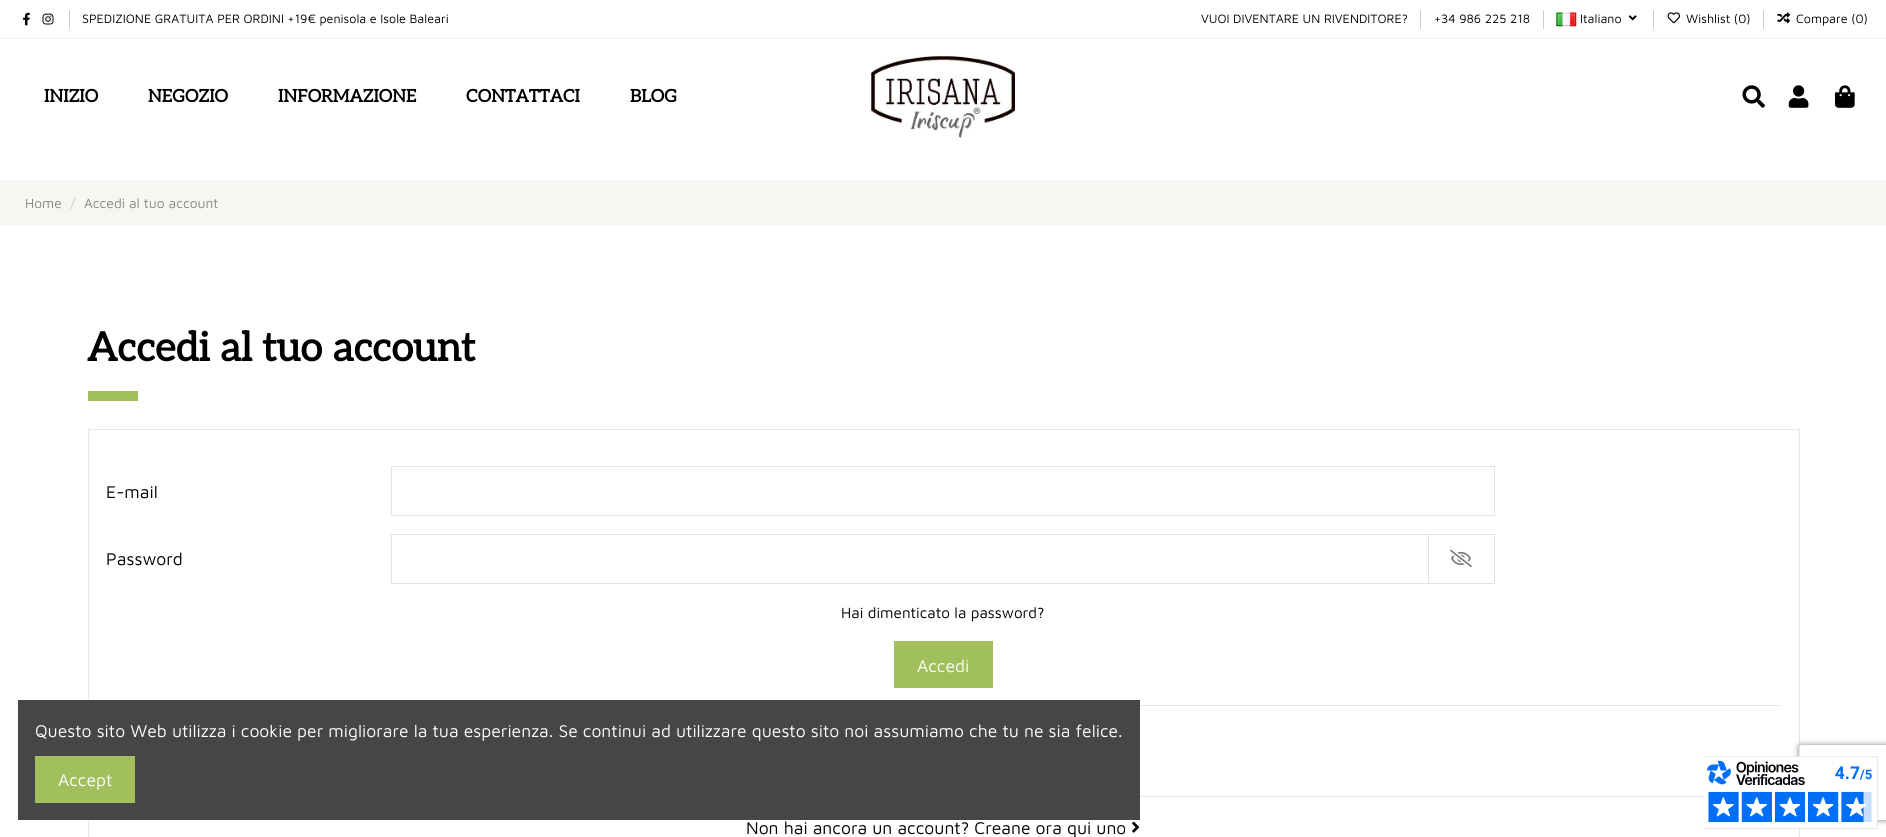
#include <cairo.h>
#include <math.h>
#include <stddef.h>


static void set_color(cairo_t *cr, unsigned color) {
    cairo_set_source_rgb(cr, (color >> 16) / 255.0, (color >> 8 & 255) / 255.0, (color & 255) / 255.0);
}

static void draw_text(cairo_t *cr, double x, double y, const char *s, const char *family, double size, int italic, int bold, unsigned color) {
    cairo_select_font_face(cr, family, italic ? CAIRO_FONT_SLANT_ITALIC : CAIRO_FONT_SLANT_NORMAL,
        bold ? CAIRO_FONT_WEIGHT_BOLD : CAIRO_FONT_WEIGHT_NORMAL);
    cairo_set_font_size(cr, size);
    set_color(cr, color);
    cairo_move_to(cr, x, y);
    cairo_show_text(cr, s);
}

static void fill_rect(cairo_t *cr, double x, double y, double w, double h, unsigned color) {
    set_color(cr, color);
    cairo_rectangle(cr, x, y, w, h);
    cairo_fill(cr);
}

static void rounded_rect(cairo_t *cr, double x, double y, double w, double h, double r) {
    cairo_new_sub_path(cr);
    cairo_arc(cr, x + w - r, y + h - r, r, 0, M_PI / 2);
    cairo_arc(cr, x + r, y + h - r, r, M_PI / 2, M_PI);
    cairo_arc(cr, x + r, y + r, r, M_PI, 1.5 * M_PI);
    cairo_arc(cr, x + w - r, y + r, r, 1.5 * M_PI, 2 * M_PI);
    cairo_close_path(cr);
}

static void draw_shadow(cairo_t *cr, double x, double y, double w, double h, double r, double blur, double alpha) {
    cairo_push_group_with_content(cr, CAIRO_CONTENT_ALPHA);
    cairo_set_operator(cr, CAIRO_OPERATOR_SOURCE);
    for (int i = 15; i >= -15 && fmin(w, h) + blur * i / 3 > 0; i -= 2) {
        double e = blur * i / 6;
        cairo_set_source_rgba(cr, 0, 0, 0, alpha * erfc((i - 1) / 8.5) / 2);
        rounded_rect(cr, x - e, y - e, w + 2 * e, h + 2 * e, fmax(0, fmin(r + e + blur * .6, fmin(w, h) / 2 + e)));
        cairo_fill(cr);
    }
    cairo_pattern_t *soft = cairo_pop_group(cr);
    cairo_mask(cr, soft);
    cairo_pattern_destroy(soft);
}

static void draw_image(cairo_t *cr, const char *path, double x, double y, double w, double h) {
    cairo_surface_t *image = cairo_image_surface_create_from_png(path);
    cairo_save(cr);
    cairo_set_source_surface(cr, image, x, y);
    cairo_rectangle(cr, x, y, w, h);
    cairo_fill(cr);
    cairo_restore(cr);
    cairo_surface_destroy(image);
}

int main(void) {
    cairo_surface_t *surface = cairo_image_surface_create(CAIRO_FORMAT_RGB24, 1886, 837);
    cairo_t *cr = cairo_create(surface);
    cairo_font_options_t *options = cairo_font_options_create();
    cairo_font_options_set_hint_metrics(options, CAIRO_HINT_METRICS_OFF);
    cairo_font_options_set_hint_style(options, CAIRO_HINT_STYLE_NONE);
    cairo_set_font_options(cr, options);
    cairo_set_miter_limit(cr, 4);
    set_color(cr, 0xFFFFFF);
    cairo_paint(cr);
    fill_rect(cr, 0, 38, 1886, 1, 0xF3F3F3);
    draw_image(cr, "assets/img1.png", 23, 12, 7, 14);
    draw_image(cr, "assets/img2.png", 42, 13, 12, 12);
    fill_rect(cr, 69, 10, 1, 19, 0xCCCCCC);
    draw_text(cr, 82, 23, "SPEDIZIONE GRATUITA PER ORDINI +19€ penisola e Isole Baleari", "Maven Pro", 12.5, 0, 0, 0x000000);
    draw_text(cr, 1201, 23, "VUOI DIVENTARE UN RIVENDITORE?", "Maven Pro", 12.5, 0, 0, 0x000000);
    fill_rect(cr, 1420, 10, 1, 19, 0xCCCCCC);
    draw_text(cr, 1434, 23, "+34 986 225 218", "Maven Pro", 12.5, 0, 0, 0x000000);
    fill_rect(cr, 1543, 10, 1, 19, 0xCCCCCC);
    draw_image(cr, "assets/img3.png", 1556, 12, 21, 15);
    draw_text(cr, 1580, 23, "Italiano", "Maven Pro", 12.5, 0, 0, 0x000000);
    draw_image(cr, "assets/img4.png", 1628, 15, 9, 6);
    fill_rect(cr, 1653, 10, 1, 19, 0xCCCCCC);
    draw_image(cr, "assets/img5.png", 1667, 12, 13, 12);
    draw_text(cr, 1686, 23, "Wishlist (0)", "Maven Pro", 12.5, 0, 0, 0x000000);
    fill_rect(cr, 1763, 10, 1, 19, 0xCCCCCC);
    draw_image(cr, "assets/img6.png", 1777, 12, 13, 12);
    draw_text(cr, 1796, 23, "Compare (0)", "Maven Pro", 12.5, 0, 0, 0x000000);
    draw_text(cr, 44, 102, "INIZIO", "Aleo", 17.5, 0, 1, 0x000000);
    draw_text(cr, 148, 102, "NEGOZIO", "Aleo", 17.5, 0, 1, 0x000000);
    draw_text(cr, 278, 102, "INFORMAZIONE", "Aleo", 17.5, 0, 1, 0x000000);
    draw_text(cr, 466, 102, "CONTATTACI", "Aleo", 17.5, 0, 1, 0x000000);
    draw_text(cr, 630, 102, "BLOG", "Aleo", 17.5, 0, 1, 0x000000);
    draw_image(cr, "assets/img7.png", 871, 56, 144, 82);
    draw_image(cr, "assets/img8.png", 1742, 85, 23, 23);
    draw_image(cr, "assets/img9.png", 1788, 85, 21, 23);
    draw_image(cr, "assets/img10.png", 1835, 85, 20, 23);
    fill_rect(cr, 0, 180, 1886, 45, 0xF4F7F2);
    draw_text(cr, 25, 208, "Home", "Maven Pro", 13.75, 0, 0, 0x858585);
    draw_text(cr, 70, 208, "/", "Maven Pro", 13.75, 0, 0, 0xC8C9C6);
    draw_text(cr, 84, 208, "Accedi al tuo account", "Maven Pro", 13.75, 0, 0, 0x858585);
    draw_text(cr, 87, 361, "Accedi al tuo account", "Aleo", 40, 0, 1, 0x000000);
    fill_rect(cr, 88, 391, 50, 10, 0xA2BF5E);
    cairo_rectangle(cr, 88.5, 429.5, 1711, 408);
    set_color(cr, 0xE7E7E7);
    cairo_set_line_width(cr, 1);
    cairo_stroke(cr);
    draw_text(cr, 106, 498, "E-mail", "Maven Pro", 17.5, 0, 0, 0x000000);
    cairo_rectangle(cr, 391.5, 466.5, 1103, 49);
    set_color(cr, 0xE3E3E3);
    cairo_stroke(cr);
    draw_text(cr, 106, 565, "Password", "Maven Pro", 17.5, 0, 0, 0x000000);
    cairo_rectangle(cr, 391.5, 534.5, 1037, 49);
    set_color(cr, 0xE3E3E3);
    cairo_stroke(cr);
    cairo_rectangle(cr, 1428.5, 534.5, 66, 49);
    cairo_stroke(cr);
    draw_image(cr, "assets/img11.png", 1450, 549, 22, 19);
    draw_text(cr, 841, 618, "Hai dimenticato la password?", "Maven Pro", 15.25, 0, 0, 0x000000);
    fill_rect(cr, 894, 641, 99, 47, 0xA2BF5E);
    draw_text(cr, 917, 672, "Accedi", "Maven Pro", 17.5, 0, 0, 0xFFFFFF);
    fill_rect(cr, 1140, 705, 641, 1, 0xE7E7E7);
    fill_rect(cr, 1140, 796, 563, 1, 0xE7E7E7);
    draw_text(cr, 746, 834, "Non hai ancora un account? Creane ora qui uno", "Maven Pro", 17.5, 0, 0, 0x000000);
    draw_image(cr, "assets/img12.png", 1132, 821, 8, 12);
    fill_rect(cr, 18, 700, 1122, 120, 0x464646);
    draw_text(cr, 35, 737, "Questo sito Web utilizza i cookie per migliorare la tua esperienza. Se continui ad utilizzare questo sito noi assumiamo che tu ne sia felice.", "Maven Pro", 17.5, 0, 0, 0xFFFFFF);
    fill_rect(cr, 35, 756, 100, 47, 0xA2BF5E);
    draw_text(cr, 58, 786, "Accept", "Maven Pro", 17.5, 0, 0, 0xFFFFFF);
    cairo_save(cr);
    cairo_set_fill_rule(cr, CAIRO_FILL_RULE_EVEN_ODD);
    cairo_new_path(cr);
    cairo_move_to(cr, 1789, 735);
    cairo_line_to(cr, 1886, 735);
    cairo_line_to(cr, 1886, 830);
    cairo_line_to(cr, 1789, 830);
    cairo_close_path(cr);
    cairo_move_to(cr, 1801.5, 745);
    cairo_line_to(cr, 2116.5, 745);
    cairo_curve_to(cr, 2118, 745, 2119, 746, 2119, 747.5);
    cairo_line_to(cr, 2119, 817.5);
    cairo_curve_to(cr, 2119, 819, 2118, 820, 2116.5, 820);
    cairo_line_to(cr, 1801.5, 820);
    cairo_curve_to(cr, 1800, 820, 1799, 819, 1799, 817.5);
    cairo_line_to(cr, 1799, 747.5);
    cairo_curve_to(cr, 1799, 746, 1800, 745, 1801.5, 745);
    cairo_close_path(cr);
    cairo_clip(cr);
    set_color(cr, 0x808080);
    draw_shadow(cr, 1799, 745, 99, 75, 2.5, 3, 1);
    cairo_restore(cr);
    draw_image(cr, "assets/img13.png", 1703, 756, 175, 73);
    cairo_surface_write_to_png(surface, "output.png");
    cairo_font_options_destroy(options);
    cairo_destroy(cr);
    cairo_surface_destroy(surface);
    return 0;
}
